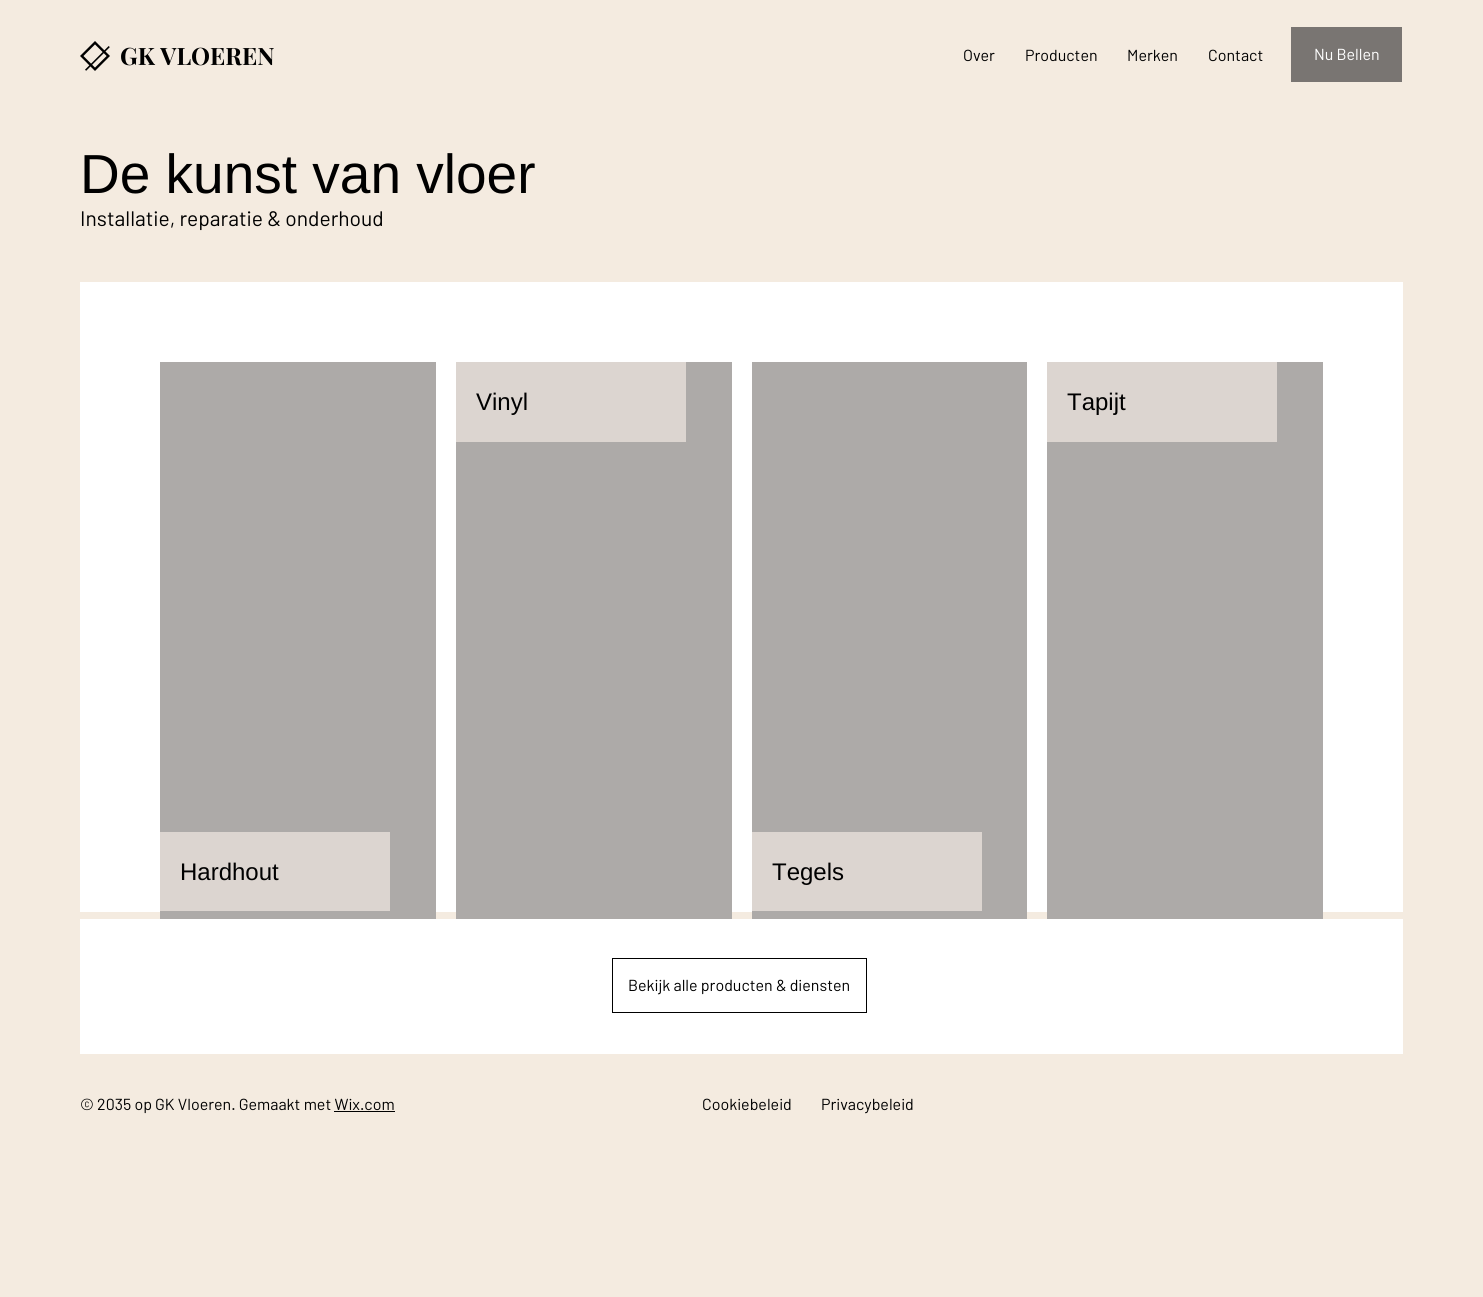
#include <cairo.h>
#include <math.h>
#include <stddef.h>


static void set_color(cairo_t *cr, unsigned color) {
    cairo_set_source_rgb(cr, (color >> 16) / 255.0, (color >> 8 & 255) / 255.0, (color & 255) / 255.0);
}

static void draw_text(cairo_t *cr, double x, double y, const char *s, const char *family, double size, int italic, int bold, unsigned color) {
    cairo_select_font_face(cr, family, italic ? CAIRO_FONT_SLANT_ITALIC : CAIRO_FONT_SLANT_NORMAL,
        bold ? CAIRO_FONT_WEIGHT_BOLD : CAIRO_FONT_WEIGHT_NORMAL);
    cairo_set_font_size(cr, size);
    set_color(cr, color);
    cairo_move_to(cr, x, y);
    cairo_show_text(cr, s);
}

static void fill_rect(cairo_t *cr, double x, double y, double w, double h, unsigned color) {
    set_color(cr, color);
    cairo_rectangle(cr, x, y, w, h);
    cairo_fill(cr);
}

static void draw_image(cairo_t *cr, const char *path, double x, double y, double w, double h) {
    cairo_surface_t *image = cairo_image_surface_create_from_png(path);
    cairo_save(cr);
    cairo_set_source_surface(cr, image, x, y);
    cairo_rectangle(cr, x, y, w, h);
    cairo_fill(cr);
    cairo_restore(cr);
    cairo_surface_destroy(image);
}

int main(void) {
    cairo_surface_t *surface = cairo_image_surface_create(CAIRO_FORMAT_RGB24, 1483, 1297);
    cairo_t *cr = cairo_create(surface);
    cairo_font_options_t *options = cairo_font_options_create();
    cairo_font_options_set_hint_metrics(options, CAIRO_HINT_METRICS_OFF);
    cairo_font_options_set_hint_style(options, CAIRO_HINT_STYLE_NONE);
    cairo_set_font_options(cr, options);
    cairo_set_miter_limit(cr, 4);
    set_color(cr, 0xF4EBE0);
    cairo_paint(cr);
    draw_image(cr, "assets/img1.png", 80, 41, 30, 30);
    draw_text(cr, 120, 65, "GK VLOEREN", "Playfair Display", 24, 0, 1, 0x000000);
    draw_text(cr, 963, 61, "Over", "Barlow", 16, 0, 0, 0x000000);
    draw_text(cr, 1025, 61, "Producten", "Barlow", 16, 0, 0, 0x000000);
    draw_text(cr, 1127, 61, "Merken", "Barlow", 16, 0, 0, 0x000000);
    draw_text(cr, 1208, 61, "Contact", "Barlow", 16, 0, 0, 0x000000);
    fill_rect(cr, 1291, 27, 111, 55, 0x797572);
    draw_text(cr, 1314, 60, "Nu Bellen", "Barlow", 16, 0, 0, 0xFFFFFF);
    draw_text(cr, 80, 193, "De kunst van vloer", "Liberation Sans", 55, 0, 0, 0x000000);
    draw_text(cr, 80, 226, "Installatie, reparatie & onderhoud", "Barlow", 21, 0, 0, 0x000000);
    fill_rect(cr, 80, 282, 1323, 630, 0xFFFFFF);
    fill_rect(cr, 456, 362, 276, 557, 0xADAAA8);
    fill_rect(cr, 456, 362, 230, 80, 0xDCD5D0);
    draw_text(cr, 476, 410, "Vinyl", "Liberation Sans", 24, 0, 0, 0x000000);
    fill_rect(cr, 1047, 362, 276, 557, 0xADAAA8);
    fill_rect(cr, 1047, 362, 230, 80, 0xDCD5D0);
    draw_text(cr, 1067, 410, "Tapijt", "Liberation Sans", 24, 0, 0, 0x000000);
    fill_rect(cr, 160, 362, 276, 557, 0xADAAA8);
    fill_rect(cr, 160, 832, 230, 79, 0xDCD5D0);
    draw_text(cr, 180, 880, "Hardhout", "Liberation Sans", 24, 0, 0, 0x000000);
    fill_rect(cr, 752, 362, 275, 557, 0xADAAA8);
    fill_rect(cr, 752, 832, 230, 79, 0xDCD5D0);
    draw_text(cr, 772, 880, "Tegels", "Liberation Sans", 24, 0, 0, 0x000000);
    fill_rect(cr, 80, 919, 1323, 135, 0xFFFFFF);
    cairo_rectangle(cr, 612.5, 958.5, 254, 54);
    set_color(cr, 0x000000);
    cairo_set_line_width(cr, 1);
    cairo_stroke(cr);
    draw_text(cr, 628, 991, "Bekijk alle producten & diensten", "Barlow", 16, 0, 0, 0x000000);
    draw_text(cr, 80, 1110, "© 2035 op GK Vloeren. Gemaakt met Wix.com", "Barlow", 16, 0, 0, 0x000000);
    fill_rect(cr, 334, 1111, 61, 1, 0x000000);
    draw_text(cr, 702, 1110, "Cookiebeleid", "Barlow", 16, 0, 0, 0x000000);
    draw_text(cr, 821, 1110, "Privacybeleid", "Barlow", 16, 0, 0, 0x000000);
    cairo_surface_write_to_png(surface, "output.png");
    cairo_font_options_destroy(options);
    cairo_destroy(cr);
    cairo_surface_destroy(surface);
    return 0;
}
